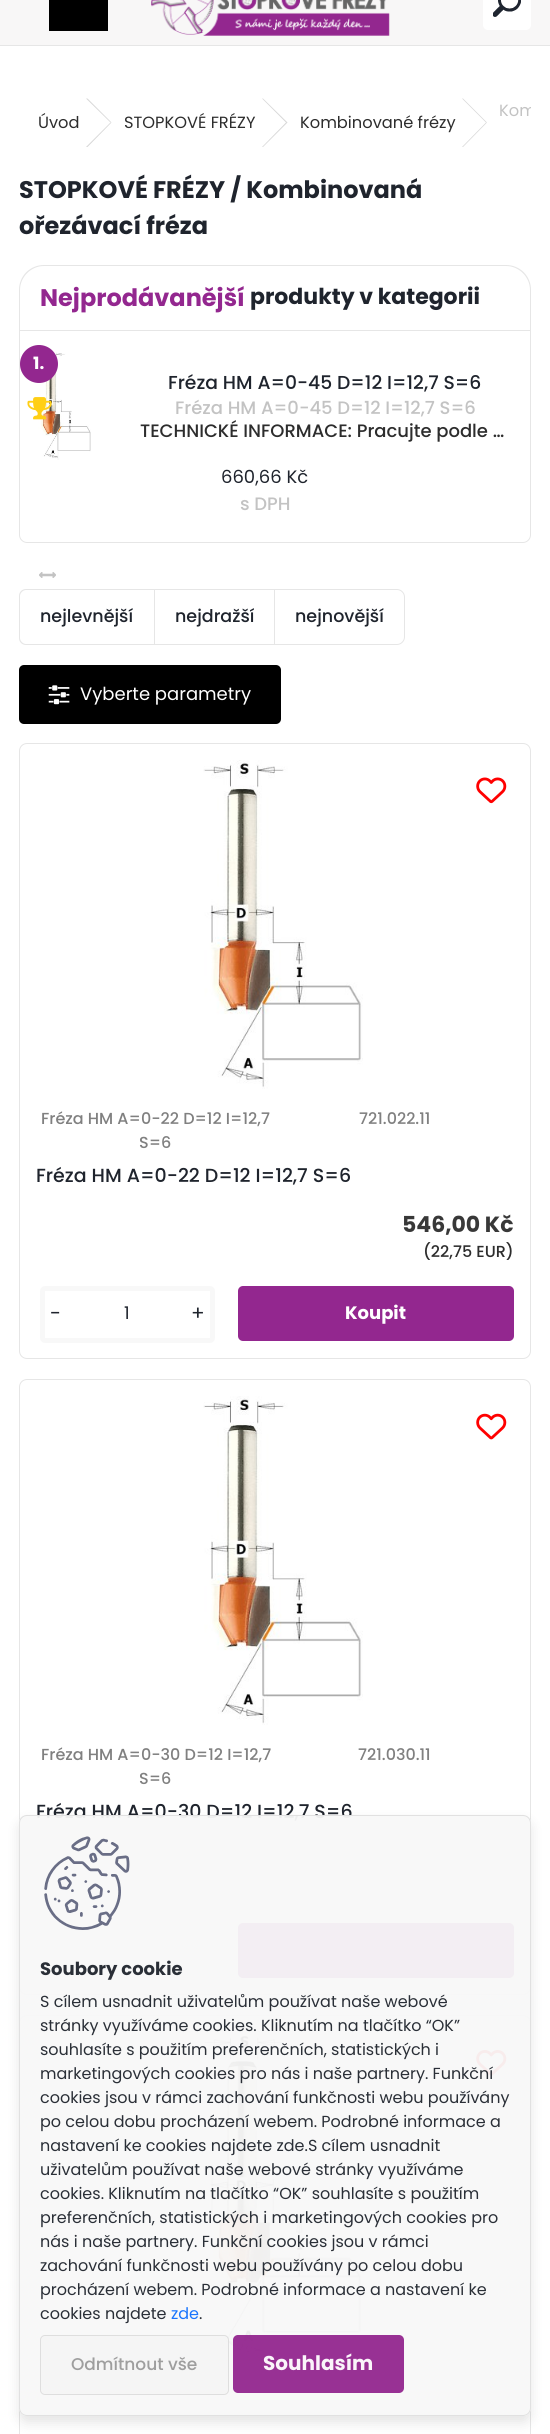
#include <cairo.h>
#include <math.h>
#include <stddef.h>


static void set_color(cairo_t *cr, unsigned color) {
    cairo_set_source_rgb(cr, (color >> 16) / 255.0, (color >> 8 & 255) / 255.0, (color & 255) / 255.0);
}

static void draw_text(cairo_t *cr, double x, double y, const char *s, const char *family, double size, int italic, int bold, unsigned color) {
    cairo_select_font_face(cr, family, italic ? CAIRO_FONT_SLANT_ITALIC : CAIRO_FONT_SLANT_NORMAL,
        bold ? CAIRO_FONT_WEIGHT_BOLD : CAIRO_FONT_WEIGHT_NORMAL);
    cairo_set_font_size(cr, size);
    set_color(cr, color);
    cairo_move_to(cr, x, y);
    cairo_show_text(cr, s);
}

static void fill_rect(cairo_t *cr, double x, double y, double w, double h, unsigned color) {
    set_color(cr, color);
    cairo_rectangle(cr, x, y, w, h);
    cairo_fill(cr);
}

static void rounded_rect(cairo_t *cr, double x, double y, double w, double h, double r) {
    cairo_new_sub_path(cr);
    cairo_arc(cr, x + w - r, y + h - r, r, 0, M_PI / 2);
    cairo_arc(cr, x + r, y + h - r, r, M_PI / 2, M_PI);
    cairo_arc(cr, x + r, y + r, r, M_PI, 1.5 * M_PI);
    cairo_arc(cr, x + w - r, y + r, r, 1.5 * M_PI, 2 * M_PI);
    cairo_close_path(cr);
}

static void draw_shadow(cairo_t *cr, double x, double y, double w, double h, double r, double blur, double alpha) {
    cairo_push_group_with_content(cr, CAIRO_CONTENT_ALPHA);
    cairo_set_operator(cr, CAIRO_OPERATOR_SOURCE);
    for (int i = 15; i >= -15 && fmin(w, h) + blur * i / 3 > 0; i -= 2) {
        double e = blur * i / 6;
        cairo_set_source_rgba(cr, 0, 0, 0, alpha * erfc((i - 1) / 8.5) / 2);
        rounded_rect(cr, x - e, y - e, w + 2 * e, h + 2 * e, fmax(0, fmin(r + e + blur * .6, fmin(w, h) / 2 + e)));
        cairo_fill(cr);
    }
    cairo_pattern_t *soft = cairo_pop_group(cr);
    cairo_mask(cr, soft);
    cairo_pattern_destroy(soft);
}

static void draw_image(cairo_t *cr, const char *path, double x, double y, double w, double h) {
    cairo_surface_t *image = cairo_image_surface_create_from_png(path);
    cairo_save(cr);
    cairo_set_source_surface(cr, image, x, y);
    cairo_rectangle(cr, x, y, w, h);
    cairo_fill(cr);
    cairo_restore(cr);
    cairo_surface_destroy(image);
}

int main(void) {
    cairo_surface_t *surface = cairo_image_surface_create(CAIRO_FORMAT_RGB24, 550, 2434);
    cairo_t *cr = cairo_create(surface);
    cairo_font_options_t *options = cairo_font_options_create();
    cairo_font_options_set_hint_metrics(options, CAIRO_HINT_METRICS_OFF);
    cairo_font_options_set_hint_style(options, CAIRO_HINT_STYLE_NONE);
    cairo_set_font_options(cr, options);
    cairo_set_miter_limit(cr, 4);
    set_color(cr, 0xFFFFFF);
    cairo_paint(cr);
    fill_rect(cr, 0, 0, 550, 45, 0xF8F7F7);
    fill_rect(cr, 0, 45, 550, 1, 0xE6E6E6);
    fill_rect(cr, 49, 0, 59, 31, 0x000000);
    draw_image(cr, "assets/img1.png", 151, 0, 239, 36);
    set_color(cr, 0xFFFFFF);
    rounded_rect(cr, 483, -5, 48, 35, 5);
    cairo_fill(cr);
    draw_image(cr, "assets/img2.png", 493, 0, 28, 17);
    cairo_save(cr);
    cairo_rectangle(cr, 19, 86, 512, 73);
    cairo_clip(cr);
    draw_text(cr, 499, 116, "Kom", "Poppins", 16.25, 0, 0, 0xC3C3C3);
    cairo_restore(cr);
    draw_text(cr, 38, 128, "Úvod", "Poppins", 16.25, 0, 0, 0x2D2D2D);
    set_color(cr, 0xD7D7D7);
    cairo_new_path(cr);
    cairo_move_to(cr, 86, 98.5);
    cairo_line_to(cr, 87.5, 98.5);
    cairo_line_to(cr, 111.5, 122.5);
    cairo_line_to(cr, 110.5, 122.5);
    cairo_close_path(cr);
    cairo_fill(cr);
    cairo_new_path(cr);
    cairo_move_to(cr, 110.5, 122.5);
    cairo_line_to(cr, 111.5, 122.5);
    cairo_line_to(cr, 87.5, 147);
    cairo_line_to(cr, 86, 147);
    cairo_close_path(cr);
    cairo_fill(cr);
    draw_text(cr, 124, 128, "STOPKOVÉ FRÉZY", "Poppins", 16.25, 0, 0, 0x2D2D2D);
    set_color(cr, 0xD7D7D7);
    cairo_new_path(cr);
    cairo_move_to(cr, 262, 98.5);
    cairo_line_to(cr, 263, 98.5);
    cairo_line_to(cr, 287.5, 122.5);
    cairo_line_to(cr, 286, 122.5);
    cairo_close_path(cr);
    cairo_fill(cr);
    cairo_set_source_rgba(cr, 0.216, 0.216, 0.216, 0.2);
    cairo_new_path(cr);
    cairo_move_to(cr, 286, 122.5);
    cairo_line_to(cr, 287.5, 122.5);
    cairo_line_to(cr, 263, 147);
    cairo_line_to(cr, 262, 147);
    cairo_close_path(cr);
    cairo_fill(cr);
    draw_text(cr, 300, 128, "Kombinované frézy", "Poppins", 16.25, 0, 0, 0x2D2D2D);
    set_color(cr, 0xD7D7D7);
    cairo_new_path(cr);
    cairo_move_to(cr, 462, 98.5);
    cairo_line_to(cr, 463, 98.5);
    cairo_line_to(cr, 487, 122.5);
    cairo_line_to(cr, 486, 122.5);
    cairo_close_path(cr);
    cairo_fill(cr);
    cairo_new_path(cr);
    cairo_move_to(cr, 486, 122.5);
    cairo_line_to(cr, 487, 122.5);
    cairo_line_to(cr, 463, 147);
    cairo_line_to(cr, 462, 147);
    cairo_close_path(cr);
    cairo_fill(cr);
    draw_text(cr, 19, 198, "STOPKOVÉ FRÉZY / Kombinovaná", "Poppins", 24, 0, 1, 0x1F242D);
    draw_text(cr, 19, 234, "ořezávací fréza", "Poppins", 24, 0, 1, 0x1F242D);
    set_color(cr, 0xE6E6E6);
    cairo_set_fill_rule(cr, CAIRO_FILL_RULE_EVEN_ODD);
    cairo_new_path(cr);
    cairo_move_to(cr, 44, 265);
    cairo_line_to(cr, 506, 265);
    cairo_curve_to(cr, 520, 265, 531, 276, 531, 290);
    cairo_line_to(cr, 531, 330);
    cairo_line_to(cr, 19, 330);
    cairo_line_to(cr, 19, 290);
    cairo_curve_to(cr, 19, 276, 30, 265, 44, 265);
    cairo_close_path(cr);
    cairo_move_to(cr, 44, 266);
    cairo_line_to(cr, 506, 266);
    cairo_curve_to(cr, 519, 266, 530, 277, 530, 290);
    cairo_line_to(cr, 530, 330);
    cairo_line_to(cr, 20, 330);
    cairo_line_to(cr, 20, 290);
    cairo_curve_to(cr, 20, 277, 31, 266, 44, 266);
    cairo_close_path(cr);
    cairo_fill(cr);
    draw_text(cr, 40, 306, "Nejprodávanější", "Poppins", 24, 0, 1, 0x93278F);
    draw_text(cr, 250, 304, "produkty v kategorii", "Poppins", 22, 0, 1, 0x1F242D);
    cairo_new_path(cr);
    cairo_move_to(cr, 19.5, 330.5);
    cairo_line_to(cr, 530.5, 330.5);
    cairo_line_to(cr, 530.5, 535);
    cairo_curve_to(cr, 530.5, 539, 527, 542.5, 523, 542.5);
    cairo_line_to(cr, 27, 542.5);
    cairo_curve_to(cr, 23, 542.5, 19.5, 539, 19.5, 535);
    cairo_close_path(cr);
    set_color(cr, 0xE6E6E6);
    cairo_set_line_width(cr, 1);
    cairo_stroke(cr);
    draw_image(cr, "assets/img3.png", 38, 352, 53, 108);
    set_color(cr, 0x93278F);
    cairo_arc(cr, 39, 364, 19, 0, 2 * M_PI);
    cairo_fill(cr);
    draw_text(cr, 33, 369, "1.", "Poppins", 17, 0, 1, 0xFFFFFF);
    draw_image(cr, "assets/img4.png", 27, 397, 25, 23);
    draw_text(cr, 168, 389, "Fréza HM A=0-45 D=12 I=12,7 S=6", "Poppins Medium", 18.75, 0, 0, 0x1F242D);
    draw_text(cr, 175, 414, "Fréza HM A=0-45 D=12 I=12,7 S=6", "Poppins Medium", 18, 0, 0, 0xC3C3C3);
    draw_text(cr, 140, 437, "TECHNICKÉ INFORMACE: Pracujte podle …", "Poppins Medium", 18, 0, 0, 0x2D2D2D);
    draw_text(cr, 221, 483, "660,66 Kč", "Poppins", 18, 0, 0, 0x1F242D);
    draw_text(cr, 240, 510, "s DPH", "Poppins Medium", 18, 0, 0, 0xC3C3C3);
    draw_image(cr, "assets/img5.png", 39, 572, 17, 6);
    set_color(cr, 0xE6E6E6);
    cairo_new_path(cr);
    cairo_move_to(cr, 26, 589);
    cairo_line_to(cr, 154, 589);
    cairo_line_to(cr, 154, 645);
    cairo_line_to(cr, 26, 645);
    cairo_curve_to(cr, 22, 645, 19, 642, 19, 638);
    cairo_line_to(cr, 19, 596);
    cairo_curve_to(cr, 19, 592, 22, 589, 26, 589);
    cairo_close_path(cr);
    cairo_move_to(cr, 26, 590);
    cairo_line_to(cr, 154, 590);
    cairo_line_to(cr, 154, 644);
    cairo_line_to(cr, 26, 644);
    cairo_curve_to(cr, 23, 644, 20, 641, 20, 638);
    cairo_line_to(cr, 20, 596);
    cairo_curve_to(cr, 20, 593, 23, 590, 26, 590);
    cairo_close_path(cr);
    cairo_fill(cr);
    draw_text(cr, 40, 622, "nejlevnější", "Poppins Medium", 17.5, 0, 0, 0x1F242D);
    set_color(cr, 0xE6E6E6);
    cairo_set_fill_rule(cr, CAIRO_FILL_RULE_WINDING);
    cairo_new_path(cr);
    cairo_move_to(cr, 154, 589);
    cairo_line_to(cr, 274, 589);
    cairo_line_to(cr, 274, 590);
    cairo_line_to(cr, 155, 590);
    cairo_close_path(cr);
    cairo_fill(cr);
    cairo_new_path(cr);
    cairo_move_to(cr, 274, 645);
    cairo_line_to(cr, 154, 645);
    cairo_line_to(cr, 155, 644);
    cairo_line_to(cr, 274, 644);
    cairo_close_path(cr);
    cairo_fill(cr);
    cairo_set_source_rgba(cr, 0, 0, 0, 0.1);
    cairo_new_path(cr);
    cairo_move_to(cr, 154, 645);
    cairo_line_to(cr, 154, 589);
    cairo_line_to(cr, 155, 590);
    cairo_line_to(cr, 155, 644);
    cairo_close_path(cr);
    cairo_fill(cr);
    draw_text(cr, 175, 622, "nejdražší", "Poppins Medium", 17.5, 0, 0, 0x1F242D);
    cairo_new_path(cr);
    cairo_move_to(cr, 274.5, 589.5);
    cairo_line_to(cr, 397, 589.5);
    cairo_curve_to(cr, 401, 589.5, 404.5, 593, 404.5, 597);
    cairo_line_to(cr, 404.5, 637);
    cairo_curve_to(cr, 404.5, 641, 401, 644.5, 397, 644.5);
    cairo_line_to(cr, 274.5, 644.5);
    cairo_close_path(cr);
    set_color(cr, 0xE6E6E6);
    cairo_stroke(cr);
    draw_text(cr, 295, 622, "nejnovější", "Poppins Medium", 17.5, 0, 0, 0x1F242D);
    set_color(cr, 0x000000);
    rounded_rect(cr, 19, 665, 262, 59, 5);
    cairo_fill(cr);
    draw_image(cr, "assets/img6.png", 48, 685, 22, 20);
    draw_text(cr, 80, 700, "Vyberte parametry", "Poppins", 18, 0, 0, 0xFFFFFF);
    rounded_rect(cr, 19.5, 743.5, 511, 615, 7.5);
    set_color(cr, 0xE6E6E6);
    cairo_stroke(cr);
    draw_image(cr, "assets/img7.png", 476, 777, 31, 27);
    draw_image(cr, "assets/img8.png", 203, 760, 160, 329);
    draw_text(cr, 41, 1124, "Fréza HM A=0-22 D=12 I=12,7", "Poppins Medium", 16, 0, 0, 0x808080);
    draw_text(cr, 139, 1148, "S=6", "Poppins Medium", 16, 0, 0, 0x808080);
    draw_text(cr, 359, 1124, "721.022.11", "Poppins Medium", 16, 0, 0, 0x808080);
    draw_text(cr, 36, 1182, "Fréza HM A=0-22 D=12 I=12,7 S=6", "Poppins Medium", 19, 0, 0, 0x1F242D);
    draw_text(cr, 402, 1232, "546,00 Kč", "Poppins", 22, 0, 1, 0x383838);
    draw_text(cr, 423, 1257, "(22,75 EUR)", "Poppins Medium", 16, 0, 0, 0x2D2D2D);
    rounded_rect(cr, 42.5, 1288.5, 170, 52, 2.5);
    set_color(cr, 0xF8F8F8);
    cairo_set_line_width(cr, 5);
    cairo_stroke(cr);
    draw_text(cr, 50, 1320, "-", "Poppins", 20, 0, 0, 0x1F242D);
    draw_text(cr, 124, 1319, "1", "Poppins", 17.5, 0, 0, 0x1F242D);
    draw_text(cr, 191, 1320, "+", "Poppins", 20, 0, 0, 0x1F242D);
    set_color(cr, 0x93278F);
    rounded_rect(cr, 238, 1286, 276, 55, 5);
    cairo_fill(cr);
    draw_text(cr, 345, 1319, "Koupit", "Poppins", 18, 0, 1, 0xFFFFFF);
    rounded_rect(cr, 19.5, 1379.5, 511, 615, 7.5);
    set_color(cr, 0xE6E6E6);
    cairo_set_line_width(cr, 1);
    cairo_stroke(cr);
    draw_image(cr, "assets/img9.png", 476, 1413, 31, 27);
    draw_image(cr, "assets/img10.png", 203, 1396, 160, 329);
    draw_text(cr, 41, 1760, "Fréza HM A=0-30 D=12 I=12,7", "Poppins Medium", 16, 0, 0, 0x808080);
    draw_text(cr, 139, 1784, "S=6", "Poppins Medium", 16, 0, 0, 0x808080);
    draw_text(cr, 358, 1760, "721.030.11", "Poppins Medium", 16, 0, 0, 0x808080);
    draw_text(cr, 36, 1818, "Fréza HM A=0-30 D=12 I=12,7 S=6", "Poppins Medium", 19, 0, 0, 0x1F242D);
    rounded_rect(cr, 42.5, 1923.5, 170, 52, 2.5);
    set_color(cr, 0xF8F8F8);
    cairo_set_line_width(cr, 5);
    cairo_stroke(cr);
    set_color(cr, 0x93278F);
    rounded_rect(cr, 238, 1923, 276, 55, 5);
    cairo_fill(cr);
    rounded_rect(cr, 19.5, 2015.5, 511, 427, 7.5);
    set_color(cr, 0xE6E6E6);
    cairo_set_line_width(cr, 1);
    cairo_stroke(cr);
    draw_image(cr, "assets/img11.png", 203, 2032, 160, 329);
    draw_image(cr, "assets/img12.png", 476, 2050, 31, 26);
    cairo_save(cr);
    cairo_set_fill_rule(cr, CAIRO_FILL_RULE_EVEN_ODD);
    cairo_new_path(cr);
    cairo_move_to(cr, 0, 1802);
    cairo_line_to(cr, 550, 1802);
    cairo_line_to(cr, 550, 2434);
    cairo_line_to(cr, 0, 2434);
    cairo_close_path(cr);
    cairo_move_to(cr, 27, 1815);
    cairo_line_to(cr, 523, 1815);
    cairo_curve_to(cr, 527.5, 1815, 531, 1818.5, 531, 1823);
    cairo_line_to(cr, 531, 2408);
    cairo_curve_to(cr, 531, 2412.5, 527.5, 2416, 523, 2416);
    cairo_line_to(cr, 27, 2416);
    cairo_curve_to(cr, 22.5, 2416, 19, 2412.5, 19, 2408);
    cairo_line_to(cr, 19, 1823);
    cairo_curve_to(cr, 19, 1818.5, 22.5, 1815, 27, 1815);
    cairo_close_path(cr);
    cairo_clip(cr);
    set_color(cr, 0x000000);
    draw_shadow(cr, 19, 1821, 512, 602, 8, 6, 0.1);
    cairo_restore(cr);
    cairo_set_source_rgba(cr, 0.973, 0.973, 0.973, 0.95);
    rounded_rect(cr, 19, 1815, 512, 601, 8);
    cairo_fill(cr);
    rounded_rect(cr, 19.5, 1815.5, 511, 600, 7.5);
    cairo_set_source_rgba(cr, 0.878, 0.878, 0.878, 0.95);
    cairo_stroke(cr);
    draw_image(cr, "assets/img13.png", 44, 1836, 86, 94);
    draw_text(cr, 40, 1975, "Soubory cookie", "Poppins", 18, 0, 1, 0x2A2F37);
    draw_text(cr, 40, 2007, "S cílem usnadnit uživatelům používat naše webové", "Poppins", 16, 0, 0, 0x2A2F37);
    draw_text(cr, 40, 2031, "stránky využíváme cookies. Kliknutím na tlačítko “OK”", "Poppins", 16, 0, 0, 0x2A2F37);
    draw_text(cr, 40, 2055, "souhlasíte s použitím preferenčních, statistických i", "Poppins", 16, 0, 0, 0x2A2F37);
    draw_text(cr, 40, 2079, "marketingových cookies pro nás i naše partnery. Funkční", "Poppins", 16, 0, 0, 0x2A2F37);
    draw_text(cr, 40, 2103, "cookies jsou v rámci zachování funkčnosti webu používány", "Poppins", 16, 0, 0, 0x2A2F37);
    draw_text(cr, 40, 2127, "po celou dobu procházení webem. Podrobné informace a", "Poppins", 16, 0, 0, 0x2A2F37);
    draw_text(cr, 40, 2151, "nastavení ke cookies najdete zde.S cílem usnadnit", "Poppins", 16, 0, 0, 0x2A2F37);
    draw_text(cr, 40, 2175, "uživatelům používat naše webové stránky využíváme", "Poppins", 16, 0, 0, 0x2A2F37);
    draw_text(cr, 40, 2199, "cookies. Kliknutím na tlačítko “OK” souhlasíte s použitím", "Poppins", 16, 0, 0, 0x2A2F37);
    draw_text(cr, 40, 2223, "preferenčních, statistických i marketingových cookies pro", "Poppins", 16, 0, 0, 0x2A2F37);
    draw_text(cr, 40, 2247, "nás i naše partnery. Funkční cookies jsou v rámci", "Poppins", 16, 0, 0, 0x2A2F37);
    draw_text(cr, 40, 2271, "zachování funkčnosti webu používány po celou dobu", "Poppins", 16, 0, 0, 0x2A2F37);
    draw_text(cr, 40, 2295, "procházení webem. Podrobné informace a nastavení ke", "Poppins", 16, 0, 0, 0x2A2F37);
    draw_text(cr, 40, 2319, "cookies najdete", "Poppins", 16, 0, 0, 0x2A2F37);
    draw_text(cr, 171, 2319, "zde", "Poppins", 16, 0, 0, 0x1975FD);
    draw_text(cr, 199, 2319, ".", "Poppins", 16, 0, 0, 0x2A2F37);
    cairo_set_source_rgba(cr, 0.961, 0.961, 0.961, 0.95);
    rounded_rect(cr, 40.5, 2335.5, 188, 59, 4.5);
    cairo_fill_preserve(cr);
    set_color(cr, 0xDEDEDE);
    cairo_stroke(cr);
    draw_text(cr, 71, 2370, "Odmítnout vše", "Poppins Medium", 17, 0, 0, 0x9E9E9E);
    cairo_set_source_rgba(cr, 0.576, 0.153, 0.561, 0.95);
    rounded_rect(cr, 233, 2335, 171, 58, 5);
    cairo_fill(cr);
    draw_text(cr, 263, 2370, "Souhlasím", "Poppins", 20, 0, 1, 0xFAF5FA);
    cairo_surface_write_to_png(surface, "output.png");
    cairo_font_options_destroy(options);
    cairo_destroy(cr);
    cairo_surface_destroy(surface);
    return 0;
}
